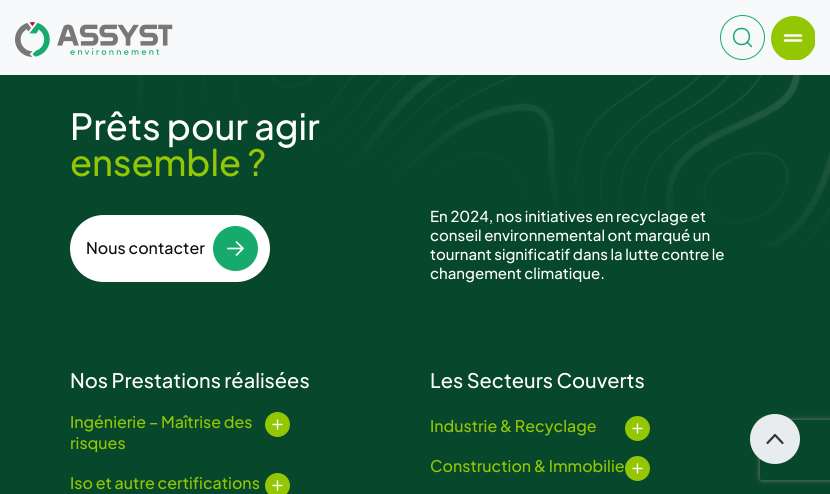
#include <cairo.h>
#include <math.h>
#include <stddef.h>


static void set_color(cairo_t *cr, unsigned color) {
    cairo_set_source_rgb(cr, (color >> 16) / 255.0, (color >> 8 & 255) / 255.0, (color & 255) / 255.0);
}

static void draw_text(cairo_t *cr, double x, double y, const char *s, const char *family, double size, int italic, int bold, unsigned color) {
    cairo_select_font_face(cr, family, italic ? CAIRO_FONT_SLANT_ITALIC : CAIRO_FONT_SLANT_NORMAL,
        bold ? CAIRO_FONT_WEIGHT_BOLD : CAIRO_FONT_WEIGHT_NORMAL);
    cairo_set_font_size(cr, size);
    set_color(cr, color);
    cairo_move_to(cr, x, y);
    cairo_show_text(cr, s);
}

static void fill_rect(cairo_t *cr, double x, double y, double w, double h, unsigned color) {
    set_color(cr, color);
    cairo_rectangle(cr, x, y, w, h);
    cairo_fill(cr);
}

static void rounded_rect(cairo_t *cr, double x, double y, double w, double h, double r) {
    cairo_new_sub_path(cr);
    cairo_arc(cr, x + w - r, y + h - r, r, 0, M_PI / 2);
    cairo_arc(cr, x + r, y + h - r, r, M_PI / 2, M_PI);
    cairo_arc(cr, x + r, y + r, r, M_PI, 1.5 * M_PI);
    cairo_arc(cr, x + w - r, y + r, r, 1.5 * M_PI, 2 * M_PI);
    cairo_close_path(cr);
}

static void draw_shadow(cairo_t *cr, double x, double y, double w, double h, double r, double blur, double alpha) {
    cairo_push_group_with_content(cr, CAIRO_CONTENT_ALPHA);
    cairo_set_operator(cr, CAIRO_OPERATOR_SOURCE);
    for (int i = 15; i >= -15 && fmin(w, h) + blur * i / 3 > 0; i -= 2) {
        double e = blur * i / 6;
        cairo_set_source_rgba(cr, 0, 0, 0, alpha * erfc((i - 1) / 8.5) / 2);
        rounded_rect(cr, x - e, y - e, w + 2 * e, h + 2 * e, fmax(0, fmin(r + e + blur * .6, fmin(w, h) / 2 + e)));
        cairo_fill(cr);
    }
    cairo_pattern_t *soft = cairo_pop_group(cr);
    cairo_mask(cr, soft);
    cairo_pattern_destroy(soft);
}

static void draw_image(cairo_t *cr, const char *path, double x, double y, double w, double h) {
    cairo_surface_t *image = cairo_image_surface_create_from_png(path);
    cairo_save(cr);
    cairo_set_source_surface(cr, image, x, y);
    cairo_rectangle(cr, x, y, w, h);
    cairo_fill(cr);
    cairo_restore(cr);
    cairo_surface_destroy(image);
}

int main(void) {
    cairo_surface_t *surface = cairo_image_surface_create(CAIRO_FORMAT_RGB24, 830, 494);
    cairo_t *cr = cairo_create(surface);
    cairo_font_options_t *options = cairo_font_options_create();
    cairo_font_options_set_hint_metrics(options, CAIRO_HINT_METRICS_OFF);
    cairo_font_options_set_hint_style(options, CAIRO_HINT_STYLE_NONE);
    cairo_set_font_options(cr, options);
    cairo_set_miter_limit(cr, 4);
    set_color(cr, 0x07472C);
    cairo_paint(cr);
    fill_rect(cr, 0, 0, 830, 75, 0xF8F9FA);
    draw_image(cr, "assets/img1.png", 15, 22, 158, 35);
    cairo_arc(cr, 742.5, 37.5, 22, 0, 2 * M_PI);
    set_color(cr, 0x16AB6D);
    cairo_set_line_width(cr, 1);
    cairo_stroke(cr);
    cairo_new_path(cr);
    cairo_move_to(cr, 741.5, 44.5);
    cairo_curve_to(cr, 752, 44.5, 752, 28.5, 741.5, 28.5);
    cairo_curve_to(cr, 731, 28.5, 731, 44.5, 741.5, 44.5);
    cairo_close_path(cr);
    cairo_move_to(cr, 747, 42);
    cairo_line_to(cr, 751.5, 46.5);
    cairo_set_line_width(cr, 1.5);
    cairo_set_line_cap(cr, CAIRO_LINE_CAP_ROUND);
    cairo_set_line_join(cr, CAIRO_LINE_JOIN_ROUND);
    cairo_stroke(cr);
    cairo_save(cr);
    cairo_rectangle(cr, 770, 15, 45, 45);
    cairo_clip(cr);
    set_color(cr, 0x94C703);
    cairo_arc(cr, 793.5, 38.5, 22.5, 0, 2 * M_PI);
    cairo_fill(cr);
    cairo_restore(cr);
    cairo_new_path(cr);
    cairo_move_to(cr, 785, 35.5);
    cairo_line_to(cr, 801, 35.5);
    cairo_move_to(cr, 785, 40.5);
    cairo_line_to(cr, 801, 40.5);
    set_color(cr, 0xFFFFFF);
    cairo_set_line_width(cr, 2.5);
    cairo_set_line_join(cr, CAIRO_LINE_JOIN_MITER);
    cairo_stroke(cr);
    draw_image(cr, "assets/img2.png", 137, 75, 693, 171);
    draw_text(cr, 70, 140, "Prêts pour agir", "Plus Jakarta Sans Medium", 36, 0, 0, 0xFFFFFF);
    draw_text(cr, 70, 176, "ensemble ?", "Plus Jakarta Sans Medium", 36, 0, 0, 0x94C703);
    set_color(cr, 0xFFFFFF);
    rounded_rect(cr, 70, 215, 200, 67, 33.5);
    cairo_fill(cr);
    draw_text(cr, 86, 254, "Nous contacter", "Plus Jakarta Sans Medium", 16, 0, 0, 0x0E0E0E);
    set_color(cr, 0x16AB6D);
    cairo_new_path(cr);
    cairo_arc(cr, 235.5, 248.5, 22.5, 0, 2 * M_PI);
    cairo_fill(cr);
    cairo_new_path(cr);
    cairo_move_to(cr, 228, 248.5);
    cairo_line_to(cr, 242, 248.5);
    cairo_move_to(cr, 236.5, 242);
    cairo_line_to(cr, 243, 248.5);
    cairo_line_to(cr, 236.5, 255);
    set_color(cr, 0xFFFFFF);
    cairo_set_line_width(cr, 1.7);
    cairo_set_line_join(cr, CAIRO_LINE_JOIN_ROUND);
    cairo_stroke(cr);
    draw_text(cr, 430, 222, "En 2024, nos initiatives en recyclage et", "Plus Jakarta Sans Medium", 15, 0, 0, 0xFFFFFF);
    draw_text(cr, 430, 241, "conseil environnemental ont marqué un", "Plus Jakarta Sans Medium", 15, 0, 0, 0xFFFFFF);
    draw_text(cr, 430, 260, "tournant significatif dans la lutte contre le", "Plus Jakarta Sans Medium", 15, 0, 0, 0xFFFFFF);
    draw_text(cr, 430, 279, "changement climatique.", "Plus Jakarta Sans Medium", 15, 0, 0, 0xFFFFFF);
    draw_text(cr, 70, 388, "Nos Prestations réalisées", "Plus Jakarta Sans Medium", 20, 0, 0, 0xFFFFFF);
    draw_text(cr, 70, 428, "Ingénierie – Maîtrise des", "Plus Jakarta Sans Medium", 16, 0, 0, 0x94C703);
    cairo_new_path(cr);
    cairo_arc(cr, 277.5, 424.5, 12.5, 0, 2 * M_PI);
    cairo_fill(cr);
    cairo_new_path(cr);
    cairo_move_to(cr, 273, 424.5);
    cairo_line_to(cr, 282, 424.5);
    cairo_move_to(cr, 277.5, 429);
    cairo_line_to(cr, 277.5, 420);
    set_color(cr, 0xFFFFFF);
    cairo_set_line_width(cr, 1.4);
    cairo_set_line_join(cr, CAIRO_LINE_JOIN_MITER);
    cairo_stroke(cr);
    draw_text(cr, 70, 449, "risques", "Plus Jakarta Sans Medium", 16, 0, 0, 0x94C703);
    draw_text(cr, 70, 489, "Iso et autre certifications", "Plus Jakarta Sans Medium", 16, 0, 0, 0x94C703);
    cairo_new_path(cr);
    cairo_arc(cr, 277.5, 485.5, 12.5, 0, 2 * M_PI);
    cairo_fill(cr);
    cairo_new_path(cr);
    cairo_move_to(cr, 273, 485.5);
    cairo_line_to(cr, 282, 485.5);
    cairo_move_to(cr, 277.5, 490);
    cairo_line_to(cr, 277.5, 481);
    set_color(cr, 0xFFFFFF);
    cairo_stroke(cr);
    draw_text(cr, 430, 388, "Les Secteurs Couverts", "Plus Jakarta Sans Medium", 20, 0, 0, 0xFFFFFF);
    draw_text(cr, 430, 432, "Industrie & Recyclage", "Plus Jakarta Sans Medium", 16, 0, 0, 0x94C703);
    cairo_new_path(cr);
    cairo_arc(cr, 637.5, 428.5, 12.5, 0, 2 * M_PI);
    cairo_fill(cr);
    cairo_new_path(cr);
    cairo_move_to(cr, 633, 428.5);
    cairo_line_to(cr, 642, 428.5);
    cairo_move_to(cr, 637.5, 433);
    cairo_line_to(cr, 637.5, 424);
    set_color(cr, 0xFFFFFF);
    cairo_stroke(cr);
    draw_text(cr, 430, 472, "Construction & Immobilie", "Plus Jakarta Sans Medium", 16, 0, 0, 0x94C703);
    cairo_new_path(cr);
    cairo_arc(cr, 637.5, 468.5, 12.5, 0, 2 * M_PI);
    cairo_fill(cr);
    cairo_new_path(cr);
    cairo_move_to(cr, 633, 468.5);
    cairo_line_to(cr, 642, 468.5);
    cairo_move_to(cr, 637.5, 473);
    cairo_line_to(cr, 637.5, 464);
    set_color(cr, 0xFFFFFF);
    cairo_stroke(cr);
    cairo_save(cr);
    cairo_set_fill_rule(cr, CAIRO_FILL_RULE_EVEN_ODD);
    cairo_new_path(cr);
    cairo_move_to(cr, 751, 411);
    cairo_line_to(cr, 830, 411);
    cairo_line_to(cr, 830, 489);
    cairo_line_to(cr, 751, 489);
    cairo_close_path(cr);
    cairo_move_to(cr, 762, 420);
    cairo_line_to(cr, 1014, 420);
    cairo_curve_to(cr, 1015, 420, 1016, 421, 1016, 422);
    cairo_line_to(cr, 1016, 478);
    cairo_curve_to(cr, 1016, 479, 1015, 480, 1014, 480);
    cairo_line_to(cr, 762, 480);
    cairo_curve_to(cr, 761, 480, 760, 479, 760, 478);
    cairo_line_to(cr, 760, 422);
    cairo_curve_to(cr, 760, 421, 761, 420, 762, 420);
    cairo_close_path(cr);
    cairo_clip(cr);
    set_color(cr, 0x808080);
    draw_shadow(cr, 760, 420, 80, 60, 2, 2.5, 1);
    cairo_restore(cr);
    set_color(cr, 0xE9ECEF);
    cairo_arc(cr, 775, 439, 25, 0, 2 * M_PI);
    cairo_fill(cr);
    cairo_new_path(cr);
    cairo_move_to(cr, 767.5, 443);
    cairo_line_to(cr, 775, 435);
    cairo_line_to(cr, 782.5, 443);
    set_color(cr, 0x333333);
    cairo_set_line_width(cr, 2.2);
    cairo_set_line_join(cr, CAIRO_LINE_JOIN_ROUND);
    cairo_stroke(cr);
    cairo_surface_write_to_png(surface, "output.png");
    cairo_font_options_destroy(options);
    cairo_destroy(cr);
    cairo_surface_destroy(surface);
    return 0;
}
